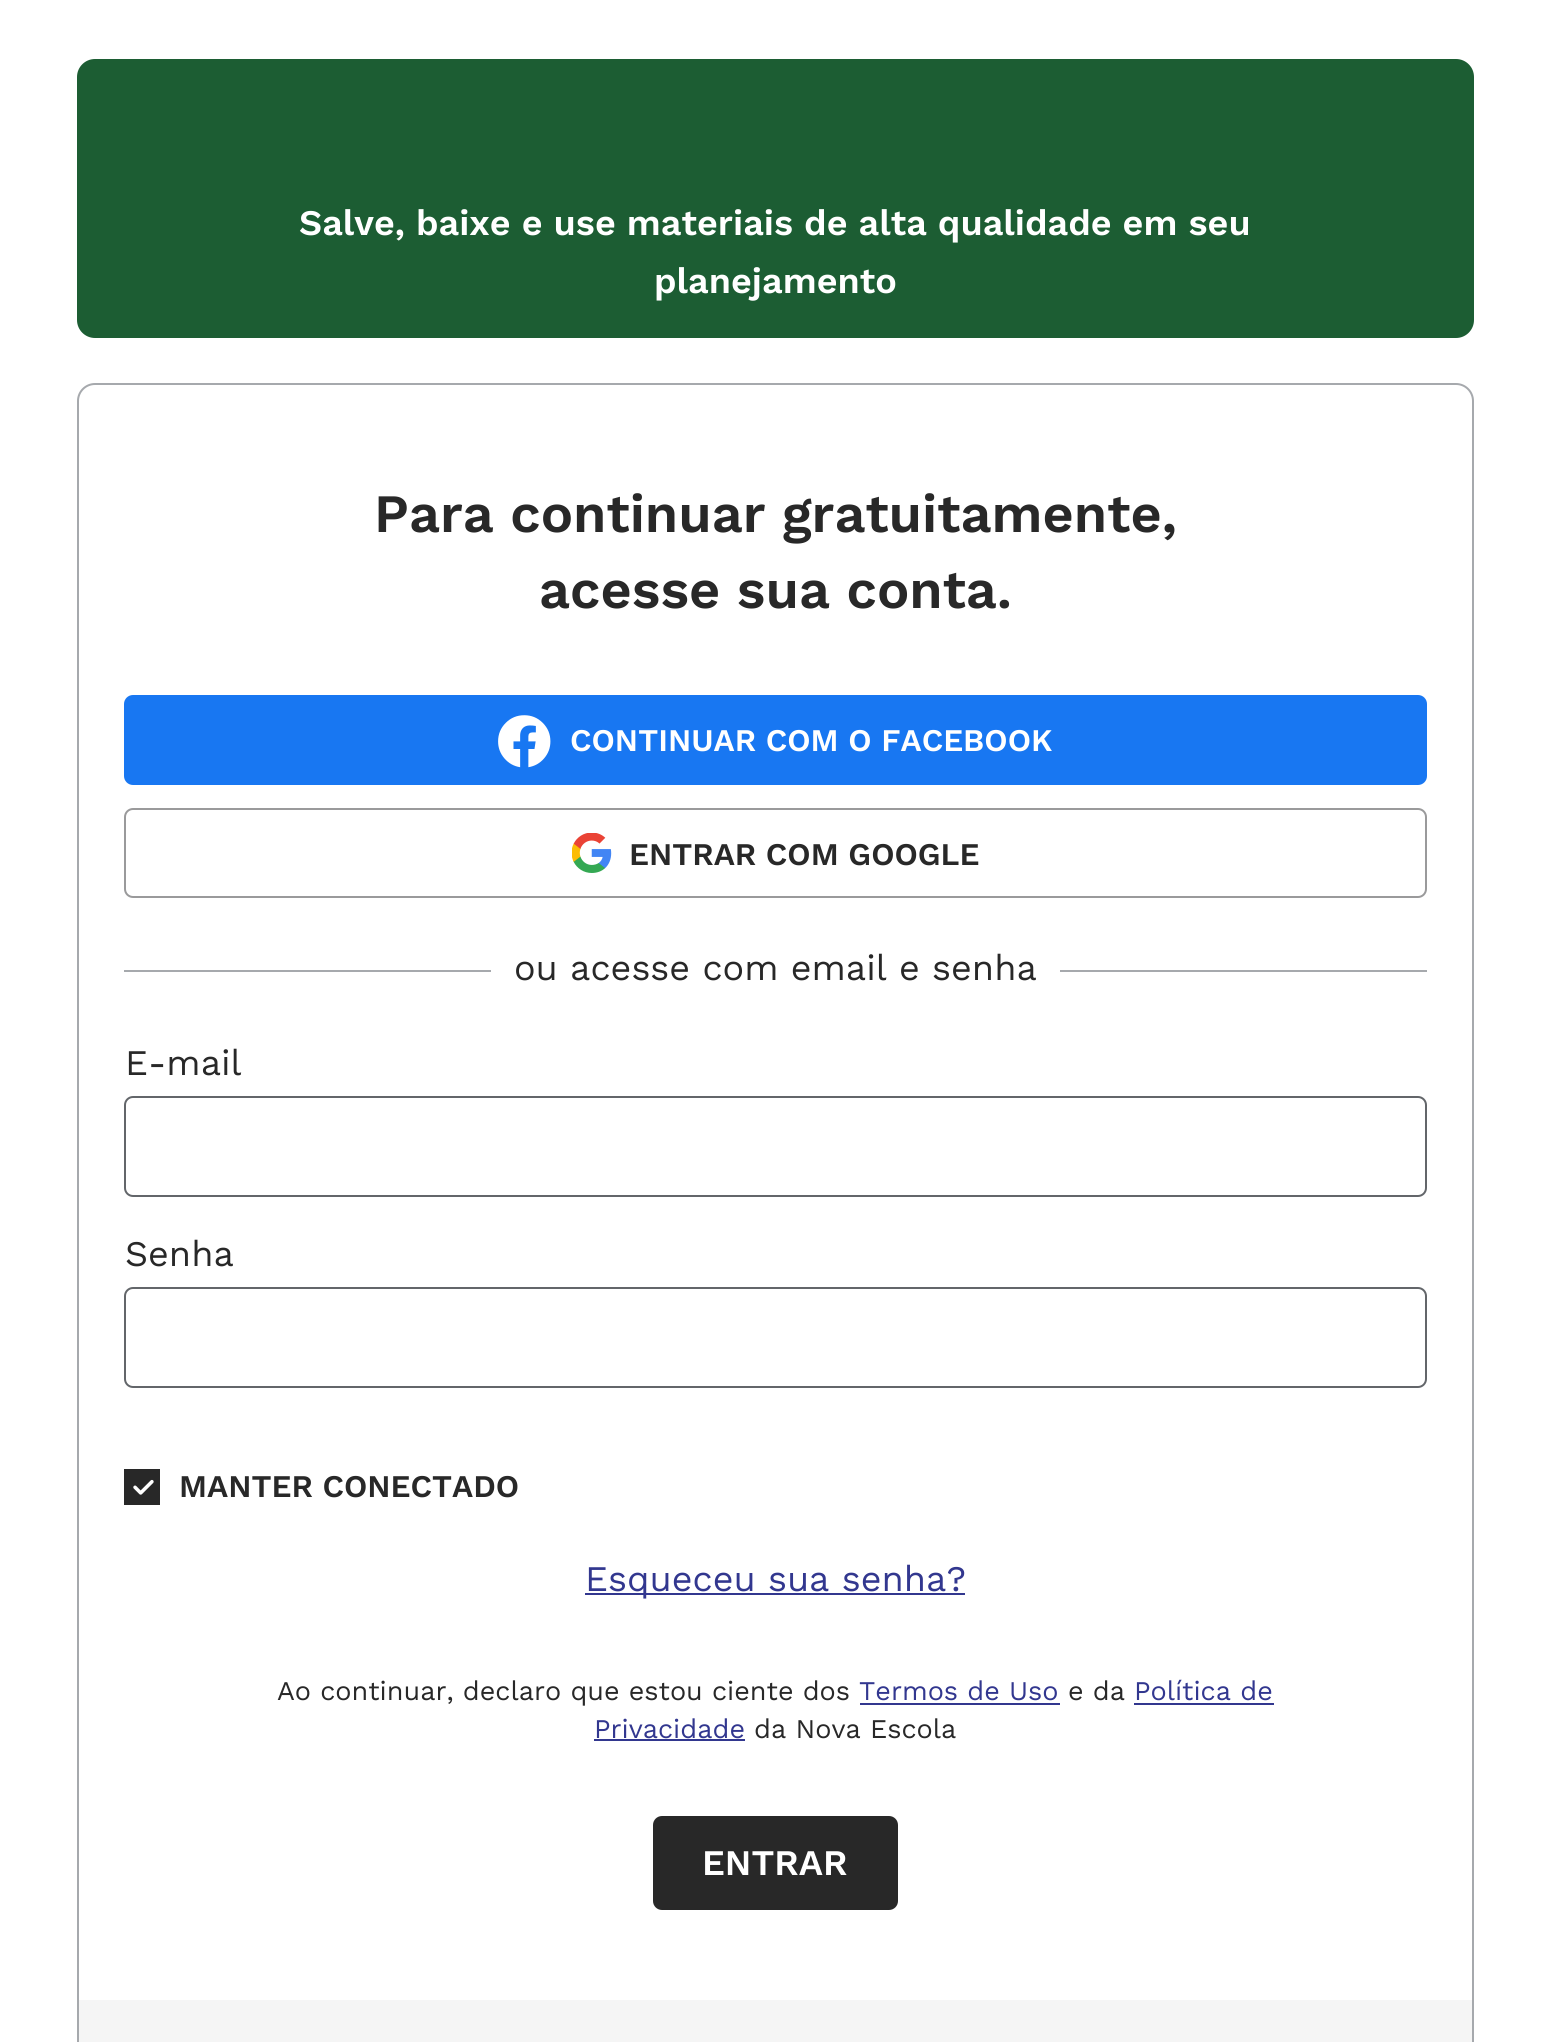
#include <cairo.h>
#include <math.h>
#include <stddef.h>


static void set_color(cairo_t *cr, unsigned color) {
    cairo_set_source_rgb(cr, (color >> 16) / 255.0, (color >> 8 & 255) / 255.0, (color & 255) / 255.0);
}

static void draw_text(cairo_t *cr, double x, double y, const char *s, const char *family, double size, int italic, int bold, unsigned color) {
    cairo_select_font_face(cr, family, italic ? CAIRO_FONT_SLANT_ITALIC : CAIRO_FONT_SLANT_NORMAL,
        bold ? CAIRO_FONT_WEIGHT_BOLD : CAIRO_FONT_WEIGHT_NORMAL);
    cairo_set_font_size(cr, size);
    set_color(cr, color);
    cairo_move_to(cr, x, y);
    cairo_show_text(cr, s);
}

static void fill_rect(cairo_t *cr, double x, double y, double w, double h, unsigned color) {
    set_color(cr, color);
    cairo_rectangle(cr, x, y, w, h);
    cairo_fill(cr);
}

static void rounded_rect(cairo_t *cr, double x, double y, double w, double h, double r) {
    cairo_new_sub_path(cr);
    cairo_arc(cr, x + w - r, y + h - r, r, 0, M_PI / 2);
    cairo_arc(cr, x + r, y + h - r, r, M_PI / 2, M_PI);
    cairo_arc(cr, x + r, y + r, r, M_PI, 1.5 * M_PI);
    cairo_arc(cr, x + w - r, y + r, r, 1.5 * M_PI, 2 * M_PI);
    cairo_close_path(cr);
}

static void draw_image(cairo_t *cr, const char *path, double x, double y, double w, double h) {
    cairo_surface_t *image = cairo_image_surface_create_from_png(path);
    cairo_save(cr);
    cairo_set_source_surface(cr, image, x, y);
    cairo_rectangle(cr, x, y, w, h);
    cairo_fill(cr);
    cairo_restore(cr);
    cairo_surface_destroy(image);
}

int main(void) {
    cairo_surface_t *surface = cairo_image_surface_create(CAIRO_FORMAT_RGB24, 1549, 2042);
    cairo_t *cr = cairo_create(surface);
    cairo_font_options_t *options = cairo_font_options_create();
    cairo_font_options_set_hint_metrics(options, CAIRO_HINT_METRICS_OFF);
    cairo_font_options_set_hint_style(options, CAIRO_HINT_STYLE_NONE);
    cairo_set_font_options(cr, options);
    cairo_set_miter_limit(cr, 4);
    set_color(cr, 0xFFFFFF);
    cairo_paint(cr);
    set_color(cr, 0x1C5D33);
    rounded_rect(cr, 77, 59, 1397, 279, 18);
    cairo_fill(cr);
    draw_text(cr, 299, 235, "Salve, baixe e use materiais de alta qualidade em seu", "Work Sans SemiBold", 36, 0, 0, 0xFFFFFF);
    draw_text(cr, 654, 293, "planejamento", "Work Sans SemiBold", 36, 0, 0, 0xFFFFFF);
    rounded_rect(cr, 78, 384, 1395, 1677, 17);
    set_color(cr, 0xA6A9AD);
    cairo_stroke(cr);
    draw_text(cr, 374, 532, "Para continuar gratuitamente,", "Work Sans SemiBold", 54, 0, 0, 0x282828);
    draw_text(cr, 539, 608, "acesse sua conta.", "Work Sans SemiBold", 54, 0, 0, 0x282828);
    set_color(cr, 0x1877F2);
    rounded_rect(cr, 124, 695, 1303, 90, 9);
    cairo_fill(cr);
    draw_image(cr, "assets/img1.png", 498, 715, 53, 53);
    draw_text(cr, 570, 751, "CONTINUAR COM O FACEBOOK", "Work Sans SemiBold", 31.5, 0, 0, 0xFFFFFF);
    rounded_rect(cr, 125, 809, 1301, 88, 8);
    set_color(cr, 0x9A9A9B);
    cairo_stroke(cr);
    draw_image(cr, "assets/img2.png", 572, 833, 40, 40);
    draw_text(cr, 629, 865, "ENTRAR COM GOOGLE", "Work Sans SemiBold", 31.5, 0, 0, 0x282828);
    fill_rect(cr, 124, 970, 1303, 2, 0xA6A9AD);
    fill_rect(cr, 491, 970, 569, 2, 0xFFFFFF);
    draw_text(cr, 514, 980, "ou acesse com email e senha", "Work Sans", 36, 0, 0, 0x282828);
    draw_text(cr, 125, 1075, "E-mail", "Work Sans", 36, 0, 0, 0x282828);
    rounded_rect(cr, 125, 1097, 1301, 99, 8);
    set_color(cr, 0x63666A);
    cairo_stroke(cr);
    draw_text(cr, 125, 1266, "Senha", "Work Sans", 36, 0, 0, 0x282828);
    rounded_rect(cr, 125, 1288, 1301, 99, 8);
    set_color(cr, 0x63666A);
    cairo_stroke(cr);
    fill_rect(cr, 124, 1469, 36, 36, 0x282828);
    draw_image(cr, "assets/img3.png", 133, 1479, 21, 16);
    draw_text(cr, 179, 1497, "MANTER CONECTADO", "Work Sans SemiBold", 31.5, 0, 0, 0x282828);
    fill_rect(cr, 585, 1593, 380, 2, 0x32378F);
    draw_text(cr, 585, 1591, "Esqueceu sua senha?", "Work Sans", 36, 0, 0, 0x32378F);
    draw_text(cr, 277, 1700, "Ao continuar, declaro que estou ciente dos", "Work Sans", 27, 0, 0, 0x282828);
    draw_text(cr, 859, 1700, "Termos de Uso", "Work Sans", 27, 0, 0, 0x32378F);
    fill_rect(cr, 860, 1703, 200, 2, 0x32378F);
    draw_text(cr, 1068, 1700, "e da", "Work Sans", 27, 0, 0, 0x282828);
    draw_text(cr, 1134, 1700, "Política de", "Work Sans", 27, 0, 0, 0x32378F);
    fill_rect(cr, 1134, 1703, 140, 2, 0x32378F);
    draw_text(cr, 594, 1738, "Privacidade", "Work Sans", 27, 0, 0, 0x32378F);
    fill_rect(cr, 594, 1739, 151, 2, 0x32378F);
    draw_text(cr, 754, 1738, "da Nova Escola", "Work Sans", 27, 0, 0, 0x282828);
    rounded_rect(cr, 655.5, 1818.5, 240, 89, 6.5);
    cairo_fill_preserve(cr);
    cairo_set_line_width(cr, 5);
    cairo_stroke(cr);
    draw_text(cr, 702, 1875, "ENTRAR", "Work Sans SemiBold", 36, 0, 0, 0xFFFFFF);
    fill_rect(cr, 79, 2000, 1393, 42, 0xF5F5F5);
    cairo_surface_write_to_png(surface, "output.png");
    cairo_font_options_destroy(options);
    cairo_destroy(cr);
    cairo_surface_destroy(surface);
    return 0;
}
